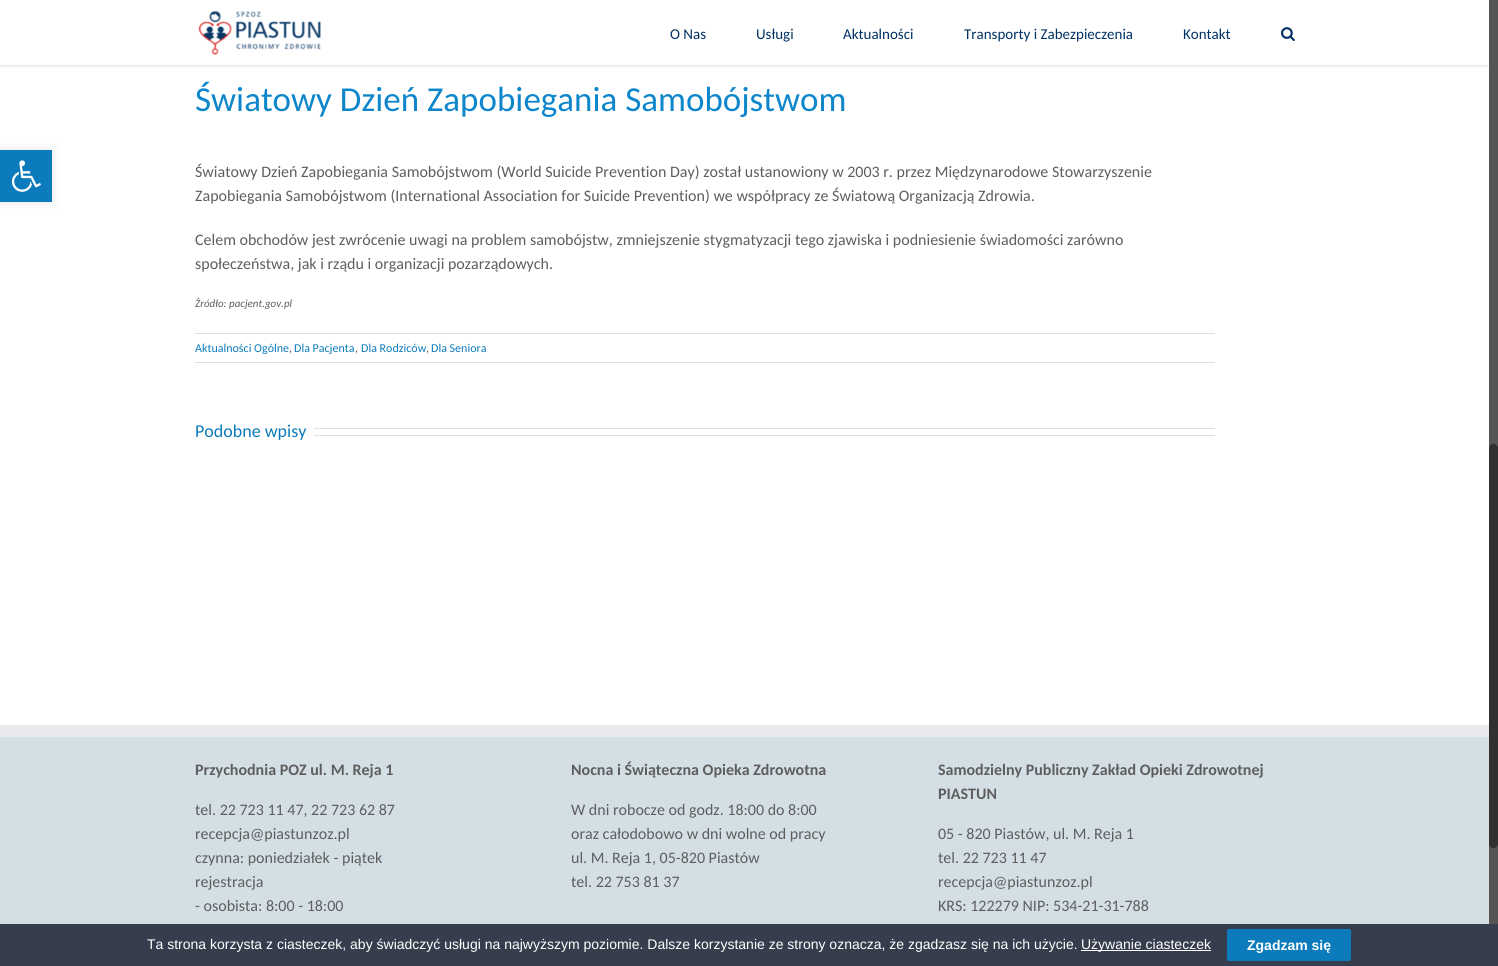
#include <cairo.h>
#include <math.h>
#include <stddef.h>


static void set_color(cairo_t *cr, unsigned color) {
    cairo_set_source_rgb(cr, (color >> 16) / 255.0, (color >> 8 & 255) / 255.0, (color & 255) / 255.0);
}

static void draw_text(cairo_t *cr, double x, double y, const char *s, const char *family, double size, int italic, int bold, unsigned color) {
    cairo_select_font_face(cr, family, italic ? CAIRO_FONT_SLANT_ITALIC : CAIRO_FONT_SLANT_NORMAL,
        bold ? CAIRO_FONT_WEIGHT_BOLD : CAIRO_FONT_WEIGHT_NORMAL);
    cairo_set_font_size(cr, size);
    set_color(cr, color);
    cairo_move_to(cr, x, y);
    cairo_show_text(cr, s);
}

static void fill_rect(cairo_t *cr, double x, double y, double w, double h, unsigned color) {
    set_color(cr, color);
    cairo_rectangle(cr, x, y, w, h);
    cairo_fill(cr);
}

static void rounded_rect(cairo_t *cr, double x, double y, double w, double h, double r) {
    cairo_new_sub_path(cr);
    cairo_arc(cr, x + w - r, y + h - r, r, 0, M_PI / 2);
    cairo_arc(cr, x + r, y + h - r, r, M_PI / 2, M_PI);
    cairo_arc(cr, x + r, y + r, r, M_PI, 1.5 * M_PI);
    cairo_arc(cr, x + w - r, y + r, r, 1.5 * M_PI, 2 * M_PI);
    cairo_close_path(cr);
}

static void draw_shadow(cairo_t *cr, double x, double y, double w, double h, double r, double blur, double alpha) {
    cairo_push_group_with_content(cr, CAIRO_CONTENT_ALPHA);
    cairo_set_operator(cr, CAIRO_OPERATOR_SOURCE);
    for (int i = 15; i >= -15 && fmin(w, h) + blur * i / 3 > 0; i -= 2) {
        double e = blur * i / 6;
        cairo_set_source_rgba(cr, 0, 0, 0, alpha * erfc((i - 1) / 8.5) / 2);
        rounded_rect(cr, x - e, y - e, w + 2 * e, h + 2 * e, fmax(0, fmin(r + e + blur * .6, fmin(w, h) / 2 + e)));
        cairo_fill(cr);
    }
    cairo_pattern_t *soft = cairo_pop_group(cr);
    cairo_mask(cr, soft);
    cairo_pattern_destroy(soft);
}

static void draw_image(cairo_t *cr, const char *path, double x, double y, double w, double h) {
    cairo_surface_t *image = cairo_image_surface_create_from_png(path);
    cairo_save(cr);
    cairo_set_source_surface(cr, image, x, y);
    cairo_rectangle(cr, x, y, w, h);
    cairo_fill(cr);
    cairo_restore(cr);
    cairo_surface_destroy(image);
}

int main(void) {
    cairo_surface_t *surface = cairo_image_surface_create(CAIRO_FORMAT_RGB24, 1498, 966);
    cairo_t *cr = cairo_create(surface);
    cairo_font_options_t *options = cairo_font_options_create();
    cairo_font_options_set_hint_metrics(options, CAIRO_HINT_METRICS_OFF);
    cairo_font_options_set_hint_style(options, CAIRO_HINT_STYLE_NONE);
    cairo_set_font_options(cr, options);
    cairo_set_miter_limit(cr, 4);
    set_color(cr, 0xFFFFFF);
    cairo_paint(cr);
    set_color(cr, 0x000000);
    draw_shadow(cr, 0, 150, 52, 52, 0, 5, 0.1);
    fill_rect(cr, 0, 150, 52, 52, 0x0C7BBB);
    draw_image(cr, "assets/img1.png", 11, 160, 30, 32);
    set_color(cr, 0x000000);
    draw_shadow(cr, 0, 1, 1498, 65, 0, 1.5, 0.12);
    fill_rect(cr, 0, 0, 1489, 65, 0xFFFFFF);
    draw_image(cr, "assets/img2.png", 198, 11, 123, 45);
    draw_text(cr, 670, 39, "O Nas", "Carlito", 15, 0, 0, 0x013265);
    draw_text(cr, 756, 39, "Usługi", "Carlito", 15, 0, 0, 0x013265);
    draw_text(cr, 843, 39, "Aktualności", "Carlito", 15, 0, 0, 0x013265);
    draw_text(cr, 964, 39, "Transporty i Zabezpieczenia", "Carlito", 15, 0, 0, 0x013265);
    draw_text(cr, 1183, 39, "Kontakt", "Carlito", 15, 0, 0, 0x013265);
    draw_image(cr, "assets/img3.png", 1281, 27, 14, 15);
    draw_text(cr, 195, 111, "Światowy Dzień Zapobiegania Samobójstwom", "Carlito", 35, 0, 0, 0x0D86CB);
    draw_text(cr, 195, 177, "Światowy Dzień Zapobiegania Samobójstwom (World Suicide Prevention Day) został ustanowiony w 2003 r. przez Międzynarodowe Stowarzyszenie", "Carlito", 16, 0, 0, 0x5E5E5E);
    draw_text(cr, 195, 201, "Zapobiegania Samobójstwom (International Association for Suicide Prevention) we współpracy ze Światową Organizacją Zdrowia.", "Carlito", 16, 0, 0, 0x5E5E5E);
    draw_text(cr, 195, 245, "Celem obchodów jest zwrócenie uwagi na problem samobójstw, zmniejszenie stygmatyzacji tego zjawiska i podniesienie świadomości zarówno", "Carlito", 16, 0, 0, 0x5E5E5E);
    draw_text(cr, 195, 269, "społeczeństwa, jak i rządu i organizacji pozarządowych.", "Carlito", 16, 0, 0, 0x5E5E5E);
    draw_text(cr, 195, 307, "Źródło: pacjent.gov.pl", "Carlito", 11, 1, 0, 0x5E5E5E);
    fill_rect(cr, 195, 333, 1020, 1, 0xE0DEDE);
    fill_rect(cr, 195, 362, 1020, 1, 0xE0DEDE);
    draw_text(cr, 195, 352, "Aktualności Ogólne", "Carlito", 12, 0, 0, 0x0C7BBB);
    draw_text(cr, 289, 352, ",", "Carlito", 12, 0, 0, 0x5E5E5E);
    draw_text(cr, 294, 352, "Dla Pacjenta", "Carlito", 12, 0, 0, 0x0C7BBB);
    draw_text(cr, 355, 352, ",", "Carlito", 12, 0, 0, 0x5E5E5E);
    draw_text(cr, 361, 352, "Dla Rodziców", "Carlito", 12, 0, 0, 0x0C7BBB);
    draw_text(cr, 426, 352, ",", "Carlito", 12, 0, 0, 0x5E5E5E);
    draw_text(cr, 431, 352, "Dla Seniora", "Carlito", 12, 0, 0, 0x0C7BBB);
    draw_text(cr, 195, 437, "Podobne wpisy", "Carlito", 18, 0, 0, 0x0C7BBB);
    fill_rect(cr, 314, 428, 901, 1, 0xE0DEDE);
    fill_rect(cr, 314, 435, 901, 1, 0xE0DEDE);
    fill_rect(cr, 0, 737, 1489, 187, 0xD4DFE5);
    fill_rect(cr, 0, 725, 1489, 12, 0xE9EAEE);
    draw_text(cr, 195, 775, "Przychodnia POZ ul. M. Reja 1", "Carlito", 16, 0, 1, 0x5E5E5E);
    draw_text(cr, 195, 815, "tel. 22 723 11 47, 22 723 62 87", "Carlito", 16, 0, 0, 0x5E5E5E);
    draw_text(cr, 195, 839, "recepcja@piastunzoz.pl", "Carlito", 16, 0, 0, 0x5E5E5E);
    draw_text(cr, 195, 863, "czynna: poniedziałek - piątek", "Carlito", 16, 0, 0, 0x5E5E5E);
    draw_text(cr, 195, 887, "rejestracja", "Carlito", 16, 0, 0, 0x5E5E5E);
    draw_text(cr, 195, 911, "- osobista: 8:00 - 18:00", "Carlito", 16, 0, 0, 0x5E5E5E);
    draw_text(cr, 571, 775, "Nocna i Świąteczna Opieka Zdrowotna", "Carlito", 16, 0, 1, 0x5E5E5E);
    draw_text(cr, 571, 815, "W dni robocze od godz. 18:00 do 8:00", "Carlito", 16, 0, 0, 0x5E5E5E);
    draw_text(cr, 571, 839, "oraz całodobowo w dni wolne od pracy", "Carlito", 16, 0, 0, 0x5E5E5E);
    draw_text(cr, 571, 863, "ul. M. Reja 1, 05-820 Piastów", "Carlito", 16, 0, 0, 0x5E5E5E);
    draw_text(cr, 571, 887, "tel. 22 753 81 37", "Carlito", 16, 0, 0, 0x5E5E5E);
    draw_text(cr, 938, 775, "Samodzielny Publiczny Zakład Opieki Zdrowotnej", "Carlito", 16, 0, 1, 0x5E5E5E);
    draw_text(cr, 938, 799, "PIASTUN", "Carlito", 16, 0, 1, 0x5E5E5E);
    draw_text(cr, 938, 839, "05 - 820 Piastów, ul. M. Reja 1", "Carlito", 16, 0, 0, 0x5E5E5E);
    draw_text(cr, 938, 863, "tel. 22 723 11 47", "Carlito", 16, 0, 0, 0x5E5E5E);
    draw_text(cr, 938, 887, "recepcja@piastunzoz.pl", "Carlito", 16, 0, 0, 0x5E5E5E);
    draw_text(cr, 938, 911, "KRS: 122279 NIP: 534-21-31-788", "Carlito", 16, 0, 0, 0x5E5E5E);
    fill_rect(cr, 1489, 0, 9, 924, 0x555555);
    set_color(cr, 0x303030);
    rounded_rect(cr, 1489, 444, 9, 404, 4.5);
    cairo_fill(cr);
    fill_rect(cr, 0, 924, 1498, 42, 0x363D4D);
    draw_text(cr, 147, 949, "Ta strona korzysta z ciasteczek, aby świadczyć usługi na najwyższym poziomie. Dalsze korzystanie ze strony oznacza, że zgadzasz się na ich użycie.", "Liberation Sans", 14, 0, 0, 0xFFFFFF);
    fill_rect(cr, 1081, 950, 130, 1, 0xFFFFFF);
    draw_text(cr, 1081, 949, "Używanie ciasteczek", "Liberation Sans", 14, 0, 0, 0xFFFFFF);
    set_color(cr, 0x0C7BBB);
    rounded_rect(cr, 1227, 929, 124, 32, 2);
    cairo_fill(cr);
    draw_text(cr, 1247, 950, "Zgadzam się", "Liberation Sans", 14, 0, 1, 0xFFFFFF);
    cairo_surface_write_to_png(surface, "output.png");
    cairo_font_options_destroy(options);
    cairo_destroy(cr);
    cairo_surface_destroy(surface);
    return 0;
}
